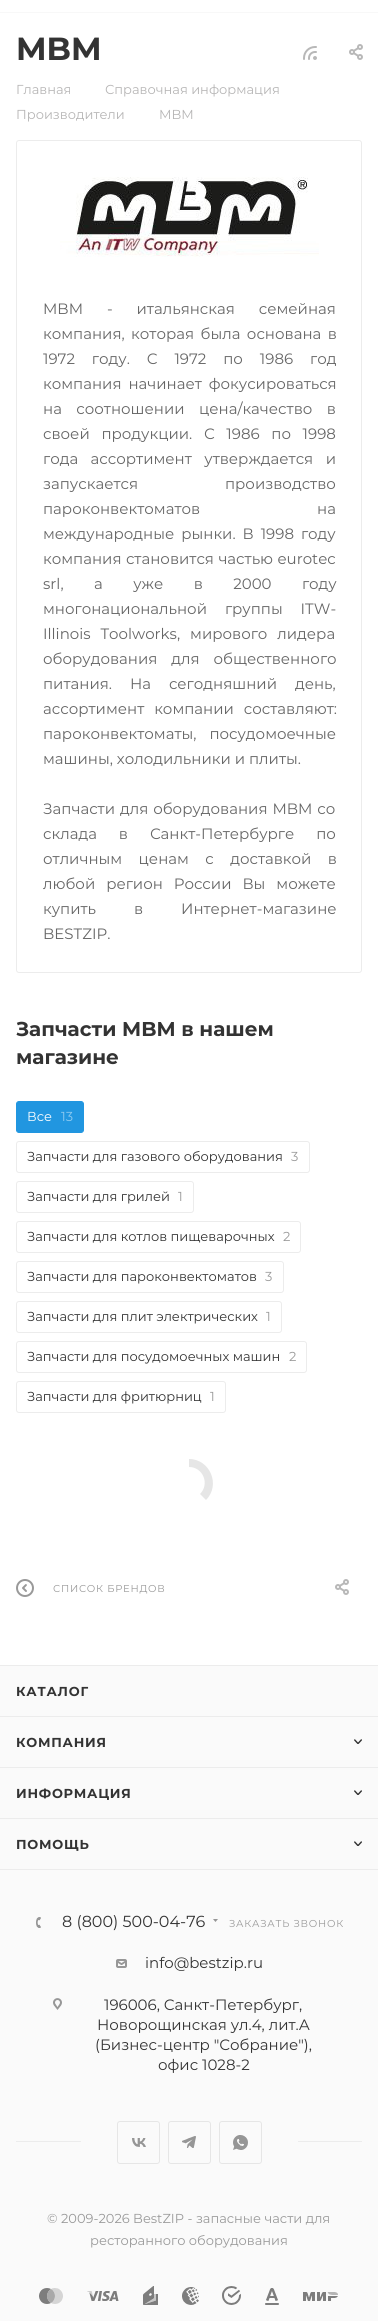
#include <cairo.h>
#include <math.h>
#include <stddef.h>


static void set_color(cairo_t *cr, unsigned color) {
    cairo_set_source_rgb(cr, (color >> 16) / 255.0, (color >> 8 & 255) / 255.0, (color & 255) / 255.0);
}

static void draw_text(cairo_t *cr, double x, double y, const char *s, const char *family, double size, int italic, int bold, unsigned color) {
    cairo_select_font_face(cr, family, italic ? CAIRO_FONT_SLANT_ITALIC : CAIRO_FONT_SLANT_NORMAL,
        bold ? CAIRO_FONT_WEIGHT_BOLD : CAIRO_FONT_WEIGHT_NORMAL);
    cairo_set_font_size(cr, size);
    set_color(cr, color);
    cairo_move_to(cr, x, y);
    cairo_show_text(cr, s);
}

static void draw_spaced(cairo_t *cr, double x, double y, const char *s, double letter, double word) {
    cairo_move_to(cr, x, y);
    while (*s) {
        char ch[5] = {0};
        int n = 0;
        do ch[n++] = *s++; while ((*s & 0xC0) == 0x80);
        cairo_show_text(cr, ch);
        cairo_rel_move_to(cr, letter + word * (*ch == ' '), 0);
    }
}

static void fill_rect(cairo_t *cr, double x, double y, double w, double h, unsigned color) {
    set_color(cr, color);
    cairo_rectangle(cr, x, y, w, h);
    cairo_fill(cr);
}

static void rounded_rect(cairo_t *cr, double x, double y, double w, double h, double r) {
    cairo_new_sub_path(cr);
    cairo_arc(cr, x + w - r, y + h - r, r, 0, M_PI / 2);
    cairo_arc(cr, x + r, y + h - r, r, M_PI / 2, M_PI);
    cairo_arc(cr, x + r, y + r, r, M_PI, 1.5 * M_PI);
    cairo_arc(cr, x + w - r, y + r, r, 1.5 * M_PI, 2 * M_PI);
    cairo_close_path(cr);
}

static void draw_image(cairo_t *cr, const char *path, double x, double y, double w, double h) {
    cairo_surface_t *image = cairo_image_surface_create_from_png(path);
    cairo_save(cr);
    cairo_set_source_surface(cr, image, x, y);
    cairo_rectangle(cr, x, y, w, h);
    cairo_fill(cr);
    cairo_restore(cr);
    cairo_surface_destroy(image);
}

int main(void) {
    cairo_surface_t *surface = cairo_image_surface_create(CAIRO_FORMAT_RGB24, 378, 2321);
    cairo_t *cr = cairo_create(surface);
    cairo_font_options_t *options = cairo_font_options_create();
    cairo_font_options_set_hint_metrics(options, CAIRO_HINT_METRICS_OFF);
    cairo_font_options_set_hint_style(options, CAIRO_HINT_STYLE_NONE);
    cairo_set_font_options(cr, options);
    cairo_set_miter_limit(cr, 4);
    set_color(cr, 0xFFFFFF);
    cairo_paint(cr);
    fill_rect(cr, 0, 12, 378, 1, 0xF8F8F8);
    draw_text(cr, 16, 60, "MBM", "Montserrat", 32, 0, 1, 0x333333);
    draw_image(cr, "assets/img1.png", 303, 46, 14, 14);
    draw_image(cr, "assets/img2.png", 349, 44, 14, 16);
    draw_text(cr, 16, 94, "Главная", "Montserrat", 13, 0, 0, 0xB6B5B5);
    draw_text(cr, 105, 94, "Справочная информация", "Montserrat", 13, 0, 0, 0xB6B5B5);
    draw_text(cr, 16, 119, "Производители", "Montserrat", 13, 0, 0, 0xB6B5B5);
    draw_text(cr, 159, 119, "MBM", "Montserrat", 13, 0, 0, 0xB6B5B5);
    rounded_rect(cr, 16.5, 140.5, 345, 832, 2.5);
    set_color(cr, 0xECECEC);
    cairo_set_line_width(cr, 1);
    cairo_stroke(cr);
    draw_image(cr, "assets/img3.png", 60, 177, 259, 80);
    cairo_set_font_size(cr, 15);
    set_color(cr, 0x666666);
    draw_spaced(cr, 43, 314, "MBM - итальянская семейная", 0, 20);
    draw_spaced(cr, 43, 339, "компания, которая была основана в", 0, 2.5);
    draw_spaced(cr, 43, 364, "1972 году. С 1972 по 1986 год", 0, 13);
    draw_spaced(cr, 43, 389, "компания начинает фокусироваться", 0, 3);
    draw_spaced(cr, 43, 414, "на соотношении цена/качество в", 0, 10.5);
    draw_spaced(cr, 43, 439, "своей продукции. С 1986 по 1998", 0, 7.75);
    draw_spaced(cr, 43, 464, "года ассортимент утверждается и", 0, 8.5);
    draw_spaced(cr, 43, 489, "запускается производство", 0, 83);
    draw_spaced(cr, 43, 514, "пароконвектоматов на", 0, 113);
    draw_spaced(cr, 43, 539, "международные рынки. В 1998 году", 0, 3);
    draw_spaced(cr, 43, 564, "компания становится частью eurotec", 0, 0.5);
    draw_spaced(cr, 43, 589, "srl, а уже в 2000 году", 0, 26.5);
    draw_spaced(cr, 43, 614, "многонациональной группы ITW-", 0, 14);
    draw_spaced(cr, 43, 639, "Illinois Toolworks, мирового лидера", 0, 6);
    draw_spaced(cr, 43, 664, "оборудования для общественного", 0, 10);
    draw_spaced(cr, 43, 689, "питания. На сегодняшний день,", 0, 14);
    draw_spaced(cr, 43, 714, "ассортимент компании составляют:", 0, 6);
    draw_spaced(cr, 43, 739, "пароконвектоматы, посудомоечные", 0, 9);
    draw_text(cr, 43, 764, "машины, холодильники и плиты.", "Montserrat", 15, 0, 0, 0x666666);
    draw_spaced(cr, 43, 814, "Запчасти для оборудования MBM со", 0, 1);
    draw_spaced(cr, 43, 839, "склада в Санкт-Петербурге по", 0, 18);
    draw_spaced(cr, 43, 864, "отличным ценам c доставкой в", 0, 12.5);
    draw_spaced(cr, 43, 889, "любой регион России Вы можете", 0, 7);
    draw_spaced(cr, 43, 914, "купить в Интернет-магазине", 0, 34);
    draw_text(cr, 43, 939, "BESTZIP.", "Montserrat", 15, 0, 0, 0x666666);
    draw_text(cr, 16, 1036, "Запчасти MBM в нашем", "Montserrat", 20, 0, 1, 0x333333);
    draw_text(cr, 16, 1064, "магазине", "Montserrat", 20, 0, 1, 0x333333);
    set_color(cr, 0x2196E0);
    rounded_rect(cr, 16.5, 1101.5, 67, 31, 2.5);
    cairo_fill_preserve(cr);
    cairo_stroke(cr);
    draw_text(cr, 27, 1121, "Все", "Montserrat", 13, 0, 0, 0xFFFFFF);
    draw_text(cr, 61, 1121, "13", "Montserrat", 13, 0, 0, 0x90CBF0);
    rounded_rect(cr, 16.5, 1141.5, 293, 31, 2.5);
    set_color(cr, 0xECECEC);
    cairo_stroke(cr);
    draw_text(cr, 27, 1161, "Запчасти для газового оборудования", "Montserrat", 13, 0, 0, 0x333333);
    draw_text(cr, 291, 1161, "3", "Montserrat", 13, 0, 0, 0x999999);
    rounded_rect(cr, 16.5, 1181.5, 177, 31, 2.5);
    set_color(cr, 0xECECEC);
    cairo_stroke(cr);
    draw_text(cr, 27, 1201, "Запчасти для грилей", "Montserrat", 13, 0, 0, 0x333333);
    draw_text(cr, 178, 1201, "1", "Montserrat", 13, 0, 0, 0x999999);
    rounded_rect(cr, 16.5, 1221.5, 284, 31, 2.5);
    set_color(cr, 0xECECEC);
    cairo_stroke(cr);
    draw_text(cr, 27, 1241, "Запчасти для котлов пищеварочных", "Montserrat", 13, 0, 0, 0x333333);
    draw_text(cr, 283, 1241, "2", "Montserrat", 13, 0, 0, 0x999999);
    rounded_rect(cr, 16.5, 1261.5, 267, 31, 2.5);
    set_color(cr, 0xECECEC);
    cairo_stroke(cr);
    draw_text(cr, 27, 1281, "Запчасти для пароконвектоматов", "Montserrat", 13, 0, 0, 0x333333);
    draw_text(cr, 265, 1281, "3", "Montserrat", 13, 0, 0, 0x999999);
    rounded_rect(cr, 16.5, 1301.5, 265, 31, 2.5);
    set_color(cr, 0xECECEC);
    cairo_stroke(cr);
    draw_text(cr, 27, 1321, "Запчасти для плит электрических", "Montserrat", 13, 0, 0, 0x333333);
    draw_text(cr, 266, 1321, "1", "Montserrat", 13, 0, 0, 0x999999);
    rounded_rect(cr, 16.5, 1341.5, 290, 31, 2.5);
    set_color(cr, 0xECECEC);
    cairo_stroke(cr);
    draw_text(cr, 27, 1361, "Запчасти для посудомоечных машин", "Montserrat", 13, 0, 0, 0x333333);
    draw_text(cr, 289, 1361, "2", "Montserrat", 13, 0, 0, 0x999999);
    rounded_rect(cr, 16.5, 1381.5, 209, 31, 2.5);
    set_color(cr, 0xECECEC);
    cairo_stroke(cr);
    draw_text(cr, 27, 1401, "Запчасти для фритюрниц", "Montserrat", 13, 0, 0, 0x333333);
    draw_text(cr, 210, 1401, "1", "Montserrat", 13, 0, 0, 0x999999);
    set_color(cr, 0xE6E6E6);
    cairo_new_path(cr);
    cairo_move_to(cr, 189, 1459);
    cairo_curve_to(cr, 210, 1459, 221, 1485, 206, 1500);
    cairo_line_to(cr, 200, 1494);
    cairo_curve_to(cr, 210, 1484, 203, 1467, 189, 1467);
    cairo_close_path(cr);
    cairo_fill(cr);
    draw_image(cr, "assets/img4.png", 16, 1579, 18, 18);
    cairo_set_font_size(cr, 10);
    set_color(cr, 0x999999);
    draw_spaced(cr, 53, 1592, "СПИСОК БРЕНДОВ", 0.75, 0);
    draw_image(cr, "assets/img2.png", 335, 1579, 14, 16);
    fill_rect(cr, 0, 1666, 378, 655, 0xFAFAFA);
    fill_rect(cr, 0, 1665, 378, 1, 0xECECEC);
    fill_rect(cr, 0, 1716, 378, 1, 0xECECEC);
    cairo_select_font_face(cr, "Montserrat", CAIRO_FONT_SLANT_NORMAL, CAIRO_FONT_WEIGHT_BOLD);
    cairo_set_font_size(cr, 13);
    set_color(cr, 0x333333);
    draw_spaced(cr, 16, 1696, "КАТАЛОГ", 0.75, 0);
    fill_rect(cr, 0, 1767, 378, 1, 0xECECEC);
    set_color(cr, 0x333333);
    draw_spaced(cr, 16, 1747, "КОМПАНИЯ", 0.75, 0);
    draw_image(cr, "assets/img5.png", 354, 1739, 8, 5);
    fill_rect(cr, 0, 1818, 378, 1, 0xECECEC);
    set_color(cr, 0x333333);
    draw_spaced(cr, 16, 1798, "ИНФОРМАЦИЯ", 0.75, 0);
    draw_image(cr, "assets/img6.png", 354, 1790, 8, 5);
    fill_rect(cr, 0, 1869, 378, 1, 0xECECEC);
    set_color(cr, 0x333333);
    draw_spaced(cr, 16, 1849, "ПОМОЩЬ", 0.75, 0);
    draw_image(cr, "assets/img7.png", 354, 1841, 8, 5);
    draw_image(cr, "assets/img8.png", 36, 1917, 5, 11);
    draw_text(cr, 62, 1927, "8 (800) 500-04-76", "Montserrat", 16, 0, 0, 0x333333);
    draw_image(cr, "assets/img9.png", 213, 1919, 5, 3);
    cairo_set_font_size(cr, 10);
    set_color(cr, 0x999999);
    draw_spaced(cr, 229, 1927, "ЗАКАЗАТЬ ЗВОНОК", 0.75, 0);
    draw_image(cr, "assets/img10.png", 116, 1959, 11, 9);
    draw_text(cr, 145, 1968, "info@bestzip.ru", "Montserrat", 15, 0, 0, 0x333333);
    draw_image(cr, "assets/img11.png", 53, 1998, 9, 12);
    draw_text(cr, 104, 2010, "196006, Санкт-Петербург,", "Montserrat", 15, 0, 0, 0x333333);
    draw_text(cr, 97, 2030, "Новорощинская ул.4, лит.А", "Montserrat", 15, 0, 0, 0x333333);
    draw_text(cr, 95, 2050, "(Бизнес-центр \"Собрание\"),", "Montserrat", 15, 0, 0, 0x333333);
    draw_text(cr, 158, 2070, "офис 1028-2", "Montserrat", 15, 0, 0, 0x333333);
    fill_rect(cr, 16, 2141, 346, 1, 0xECECEC);
    fill_rect(cr, 81, 2141, 217, 1, 0xFAFAFA);
    draw_image(cr, "assets/img12.png", 132, 2138, 14, 9);
    rounded_rect(cr, 117.5, 2121.5, 42, 42, 2.5);
    set_color(cr, 0xE6E6E6);
    cairo_stroke(cr);
    draw_image(cr, "assets/img13.png", 182, 2136, 14, 12);
    rounded_rect(cr, 168.5, 2121.5, 42, 42, 2.5);
    cairo_stroke(cr);
    draw_image(cr, "assets/img14.png", 233, 2135, 15, 15);
    rounded_rect(cr, 219.5, 2121.5, 42, 42, 2.5);
    cairo_stroke(cr);
    draw_text(cr, 47, 2223, "© 2009-2026 BestZIP - запасные части для", "Montserrat", 13, 0, 0, 0x999999);
    draw_text(cr, 90, 2245, "ресторанного оборудования", "Montserrat", 13, 0, 0, 0x999999);
    draw_image(cr, "assets/img15.png", 39, 2288, 24, 16);
    draw_image(cr, "assets/img16.png", 87, 2291, 32, 10);
    draw_image(cr, "assets/img17.png", 143, 2286, 15, 19);
    draw_image(cr, "assets/img18.png", 182, 2287, 17, 18);
    draw_image(cr, "assets/img19.png", 222, 2286, 19, 19);
    draw_image(cr, "assets/img20.png", 265, 2288, 14, 17);
    draw_image(cr, "assets/img21.png", 303, 2292, 35, 9);
    cairo_surface_write_to_png(surface, "output.png");
    cairo_font_options_destroy(options);
    cairo_destroy(cr);
    cairo_surface_destroy(surface);
    return 0;
}
